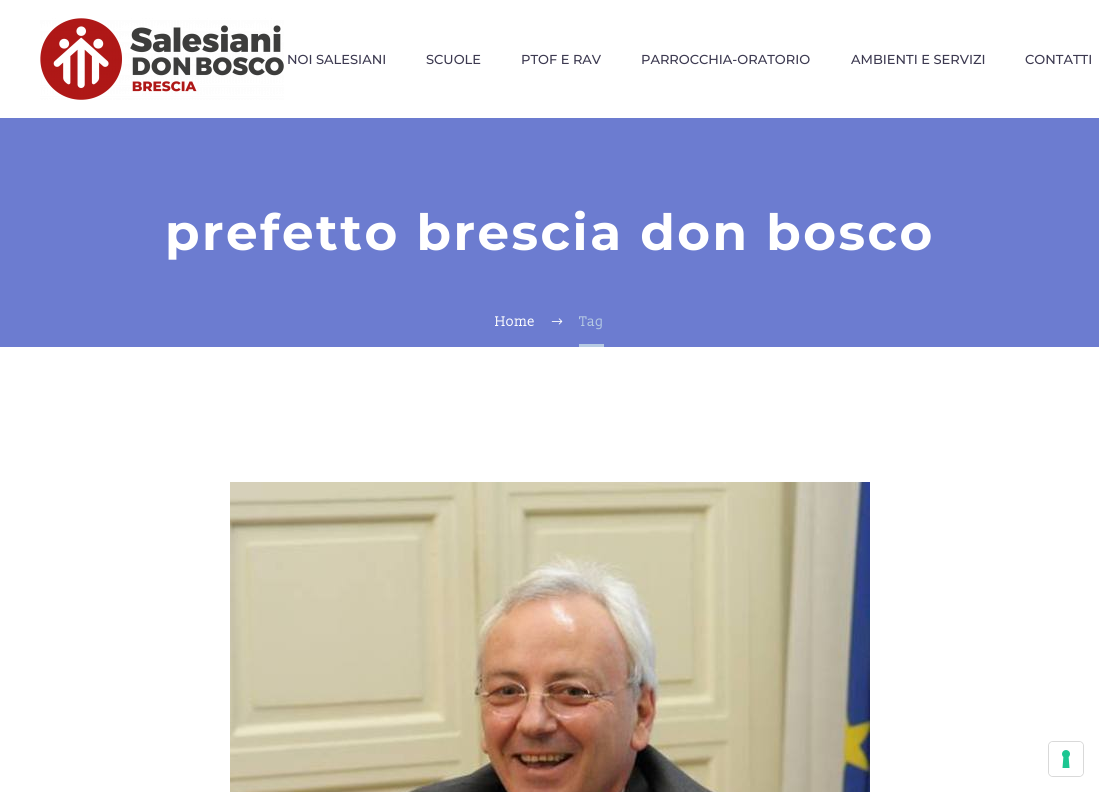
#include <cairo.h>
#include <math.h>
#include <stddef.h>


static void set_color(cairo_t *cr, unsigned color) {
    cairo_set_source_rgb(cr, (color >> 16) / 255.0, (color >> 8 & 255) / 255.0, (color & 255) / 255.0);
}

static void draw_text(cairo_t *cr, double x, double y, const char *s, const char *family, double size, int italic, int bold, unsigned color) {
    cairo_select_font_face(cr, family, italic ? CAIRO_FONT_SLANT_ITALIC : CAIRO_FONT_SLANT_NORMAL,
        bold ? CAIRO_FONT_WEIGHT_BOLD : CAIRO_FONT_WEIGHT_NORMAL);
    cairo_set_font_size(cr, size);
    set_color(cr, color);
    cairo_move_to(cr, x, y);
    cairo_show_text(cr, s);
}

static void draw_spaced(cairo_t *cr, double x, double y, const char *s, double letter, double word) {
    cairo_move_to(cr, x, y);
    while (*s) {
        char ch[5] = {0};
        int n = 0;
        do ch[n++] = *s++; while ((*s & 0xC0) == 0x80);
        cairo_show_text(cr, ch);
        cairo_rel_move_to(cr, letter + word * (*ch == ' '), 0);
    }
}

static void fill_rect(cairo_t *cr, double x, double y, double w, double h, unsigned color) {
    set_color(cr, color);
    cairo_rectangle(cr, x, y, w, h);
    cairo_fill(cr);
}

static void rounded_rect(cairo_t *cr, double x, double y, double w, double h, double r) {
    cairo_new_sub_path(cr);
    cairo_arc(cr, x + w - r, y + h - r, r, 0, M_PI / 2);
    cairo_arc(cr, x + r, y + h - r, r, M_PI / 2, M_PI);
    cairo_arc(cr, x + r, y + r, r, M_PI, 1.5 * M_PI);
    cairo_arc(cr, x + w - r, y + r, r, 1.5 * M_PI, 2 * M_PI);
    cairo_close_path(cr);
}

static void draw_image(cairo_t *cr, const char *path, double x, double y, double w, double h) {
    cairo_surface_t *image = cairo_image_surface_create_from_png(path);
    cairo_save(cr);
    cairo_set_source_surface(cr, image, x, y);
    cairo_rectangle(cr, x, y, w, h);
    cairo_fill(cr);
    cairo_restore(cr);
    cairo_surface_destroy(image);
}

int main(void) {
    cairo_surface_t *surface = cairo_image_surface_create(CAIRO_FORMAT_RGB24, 1099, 792);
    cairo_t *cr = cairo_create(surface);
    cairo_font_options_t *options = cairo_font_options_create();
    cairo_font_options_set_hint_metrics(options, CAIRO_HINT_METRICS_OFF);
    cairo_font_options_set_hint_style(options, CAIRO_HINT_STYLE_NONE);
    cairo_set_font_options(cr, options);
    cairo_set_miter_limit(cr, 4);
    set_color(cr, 0xFFFFFF);
    cairo_paint(cr);
    draw_image(cr, "assets/img1.png", 40, 18, 244, 82);
    draw_text(cr, 287, 64, "NOI SALESIANI", "Montserrat Medium", 13, 0, 0, 0x3C3950);
    draw_text(cr, 426, 64, "SCUOLE", "Montserrat Medium", 13, 0, 0, 0x3C3950);
    draw_text(cr, 521, 64, "PTOF E RAV", "Montserrat Medium", 13, 0, 0, 0x3C3950);
    draw_text(cr, 641, 64, "PARROCCHIA-ORATORIO", "Montserrat Medium", 13, 0, 0, 0x3C3950);
    draw_text(cr, 851, 64, "AMBIENTI E SERVIZI", "Montserrat Medium", 13, 0, 0, 0x3C3950);
    draw_text(cr, 1025, 64, "CONTATTI", "Montserrat Medium", 13, 0, 0, 0x3C3950);
    fill_rect(cr, 0, 118, 1099, 229, 0x6C7CD0);
    cairo_select_font_face(cr, "Montserrat", CAIRO_FONT_SLANT_NORMAL, CAIRO_FONT_WEIGHT_BOLD);
    cairo_set_font_size(cr, 50);
    set_color(cr, 0xFFFFFF);
    draw_spaced(cr, 165, 250, "prefetto brescia don bosco", 2.5, 0);
    draw_text(cr, 495, 326, "Home", "Slabo 13px", 14, 0, 0, 0xFFFFFF);
    draw_image(cr, "assets/img2.png", 551, 318, 12, 7);
    fill_rect(cr, 579, 344, 25, 3, 0xB6CAE3);
    draw_text(cr, 579, 326, "Tag", "Slabo 13px", 14, 0, 0, 0xB6CAE3);
    draw_image(cr, "assets/img3.png", 230, 482, 640, 310);
    rounded_rect(cr, 1048.5, 741.5, 35, 35, 4.5);
    set_color(cr, 0xD9D9D9);
    cairo_set_line_width(cr, 1);
    cairo_stroke(cr);
    set_color(cr, 0xFFFFFF);
    rounded_rect(cr, 1049, 742, 34, 34, 4);
    cairo_fill(cr);
    draw_image(cr, "assets/img4.png", 1062, 750, 8, 18);
    cairo_surface_write_to_png(surface, "output.png");
    cairo_font_options_destroy(options);
    cairo_destroy(cr);
    cairo_surface_destroy(surface);
    return 0;
}
